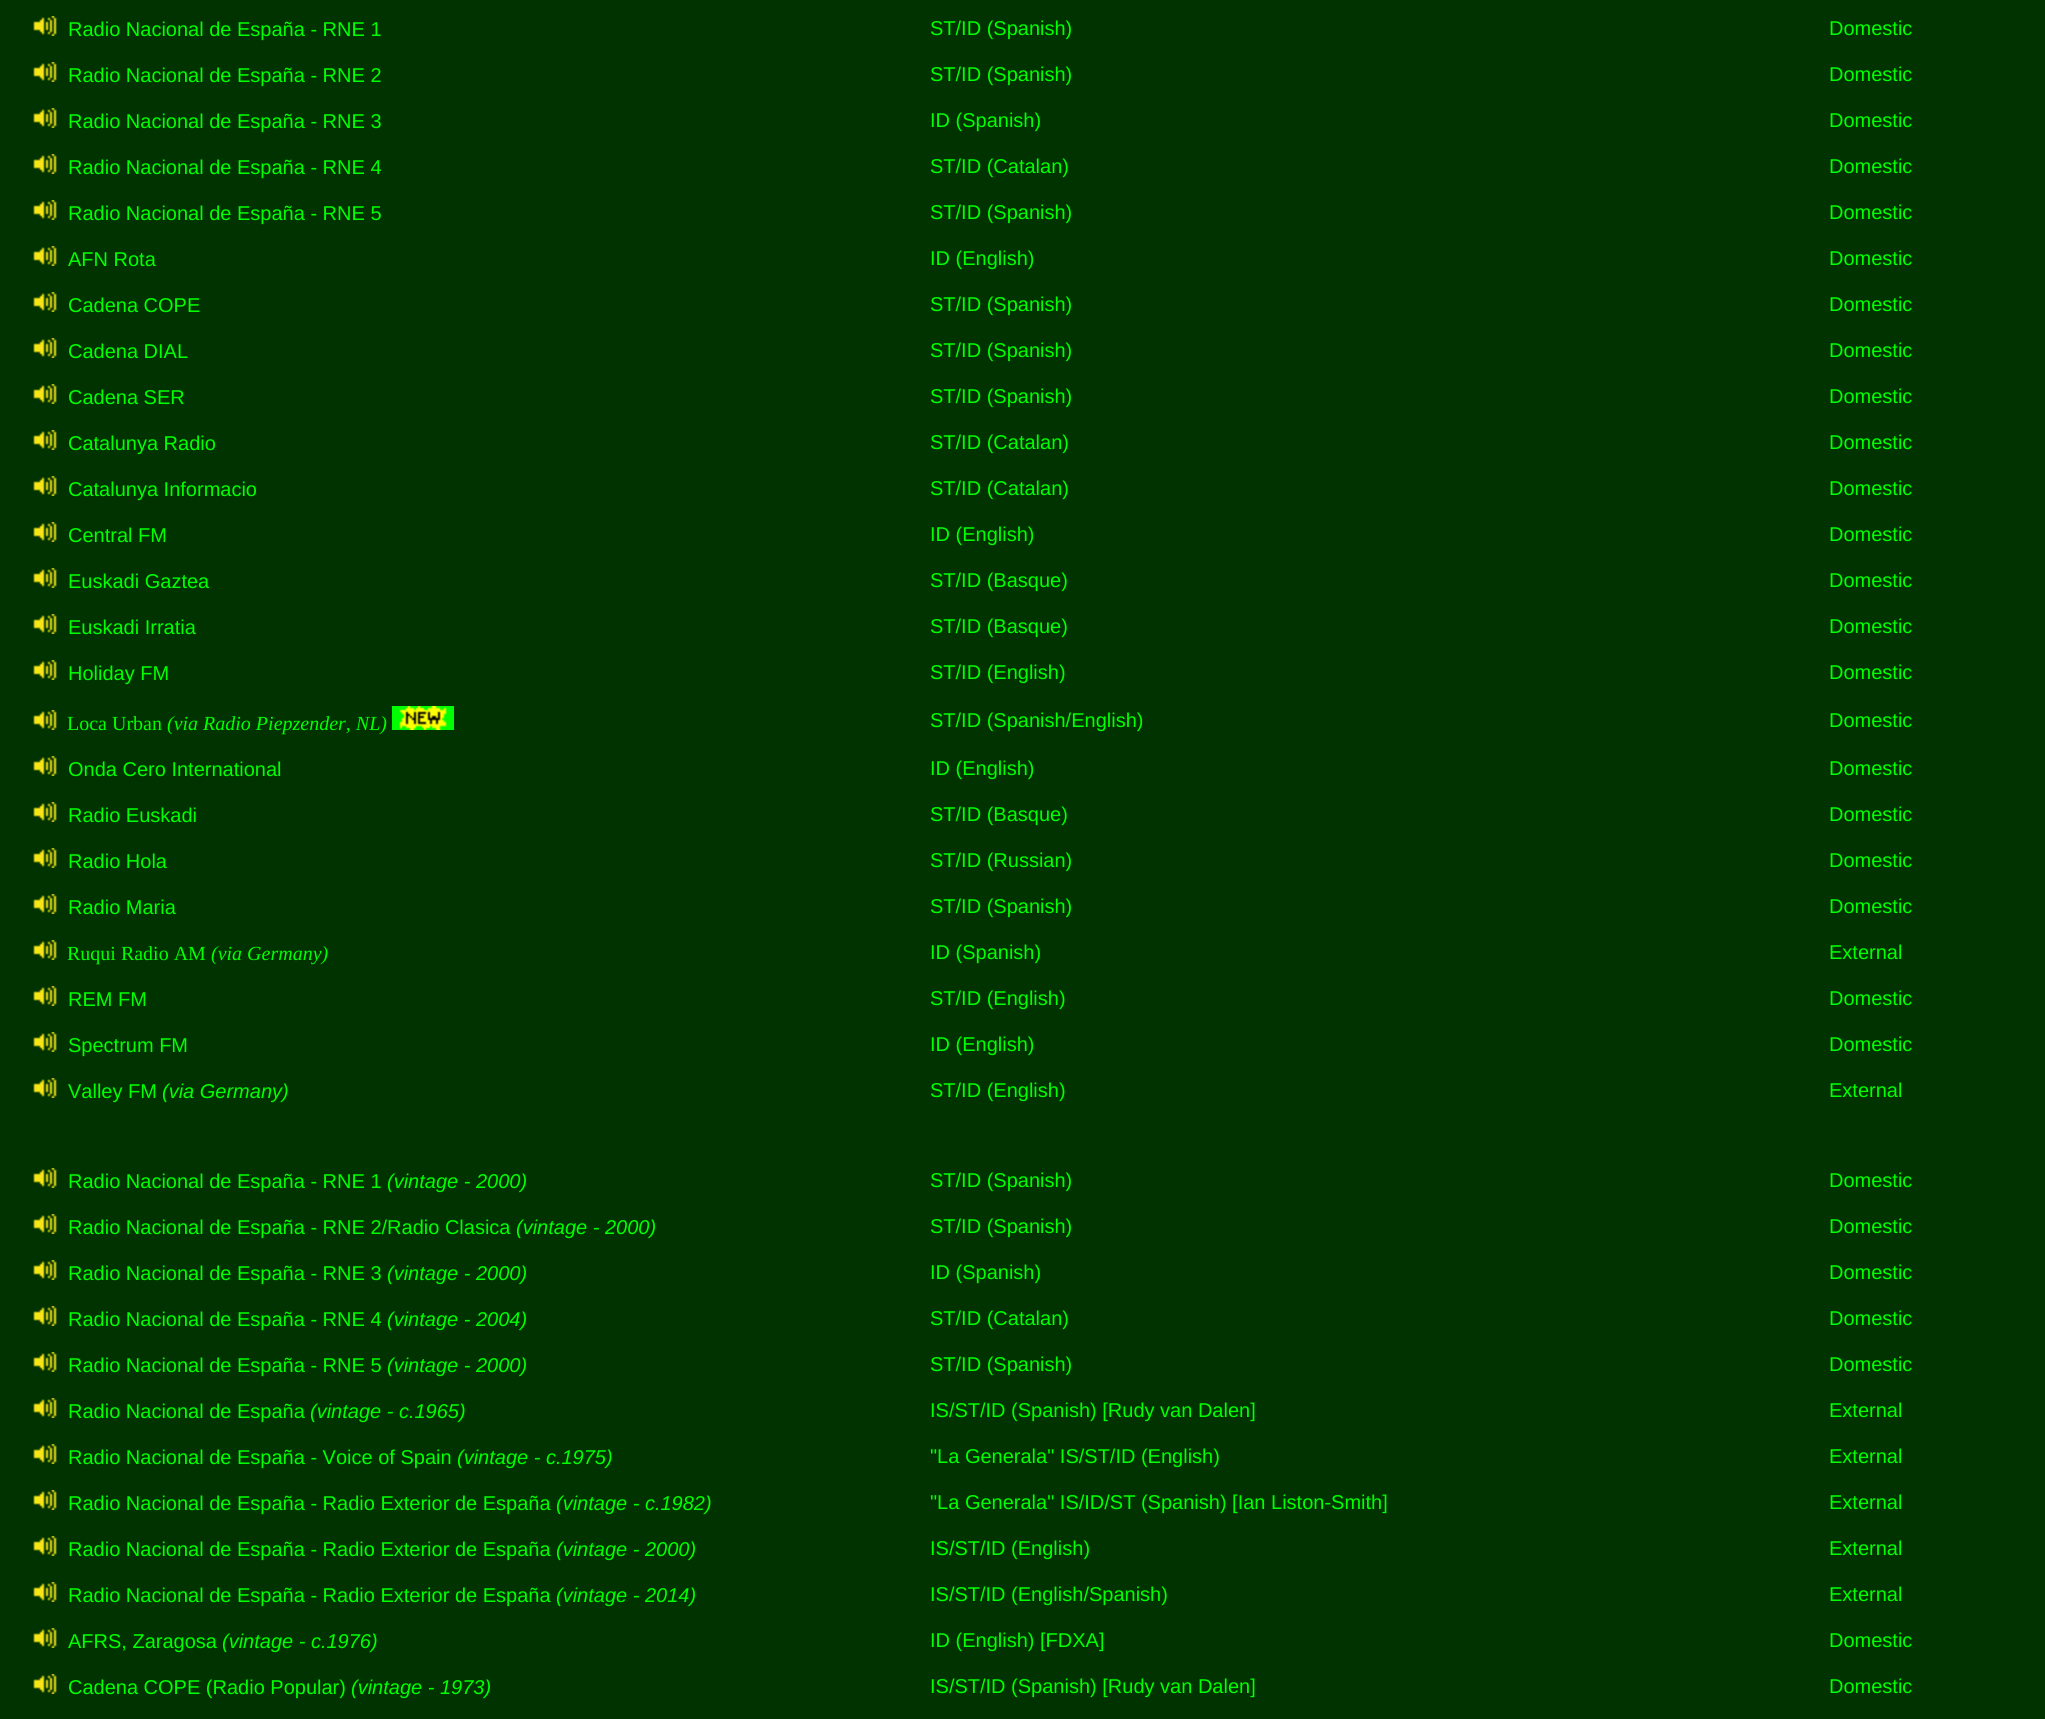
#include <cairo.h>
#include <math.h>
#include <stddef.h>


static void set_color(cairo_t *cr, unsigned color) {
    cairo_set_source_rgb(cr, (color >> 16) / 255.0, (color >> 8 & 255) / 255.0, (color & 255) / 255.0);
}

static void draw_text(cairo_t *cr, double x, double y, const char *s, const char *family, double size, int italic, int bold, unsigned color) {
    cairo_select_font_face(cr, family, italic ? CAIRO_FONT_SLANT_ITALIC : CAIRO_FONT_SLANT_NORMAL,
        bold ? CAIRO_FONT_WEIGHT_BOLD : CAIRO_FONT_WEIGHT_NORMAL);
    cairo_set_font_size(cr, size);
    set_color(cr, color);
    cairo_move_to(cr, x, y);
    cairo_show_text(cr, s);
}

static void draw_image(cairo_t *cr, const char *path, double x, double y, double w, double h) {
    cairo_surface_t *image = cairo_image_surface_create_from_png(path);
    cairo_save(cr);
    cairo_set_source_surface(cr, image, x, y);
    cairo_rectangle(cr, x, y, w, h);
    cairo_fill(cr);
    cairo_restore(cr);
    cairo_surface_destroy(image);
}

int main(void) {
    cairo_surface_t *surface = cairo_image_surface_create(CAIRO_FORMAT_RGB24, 2045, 1719);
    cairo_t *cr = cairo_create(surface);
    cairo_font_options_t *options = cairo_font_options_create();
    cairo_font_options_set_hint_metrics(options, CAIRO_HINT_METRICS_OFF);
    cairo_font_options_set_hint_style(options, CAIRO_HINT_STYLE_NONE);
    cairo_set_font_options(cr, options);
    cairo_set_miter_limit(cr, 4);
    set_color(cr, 0x003300);
    cairo_paint(cr);
    draw_image(cr, "assets/img1.png", 33, 16, 24, 20);
    draw_text(cr, 68, 36, "Radio Nacional de España - RNE 1", "Liberation Sans", 20, 0, 0, 0x00FF00);
    draw_text(cr, 930, 35, "ST/ID (Spanish)", "Liberation Sans", 20, 0, 0, 0x00FF00);
    draw_text(cr, 1829, 35, "Domestic", "Liberation Sans", 20, 0, 0, 0x00FF00);
    draw_image(cr, "assets/img1.png", 33, 62, 24, 20);
    draw_text(cr, 68, 82, "Radio Nacional de España - RNE 2", "Liberation Sans", 20, 0, 0, 0x00FF00);
    draw_text(cr, 930, 81, "ST/ID (Spanish)", "Liberation Sans", 20, 0, 0, 0x00FF00);
    draw_text(cr, 1829, 81, "Domestic", "Liberation Sans", 20, 0, 0, 0x00FF00);
    draw_image(cr, "assets/img1.png", 33, 108, 24, 20);
    draw_text(cr, 68, 128, "Radio Nacional de España - RNE 3", "Liberation Sans", 20, 0, 0, 0x00FF00);
    draw_text(cr, 930, 127, "ID (Spanish)", "Liberation Sans", 20, 0, 0, 0x00FF00);
    draw_text(cr, 1829, 127, "Domestic", "Liberation Sans", 20, 0, 0, 0x00FF00);
    draw_image(cr, "assets/img1.png", 33, 154, 24, 20);
    draw_text(cr, 68, 174, "Radio Nacional de España - RNE 4", "Liberation Sans", 20, 0, 0, 0x00FF00);
    draw_text(cr, 930, 173, "ST/ID (Catalan)", "Liberation Sans", 20, 0, 0, 0x00FF00);
    draw_text(cr, 1829, 173, "Domestic", "Liberation Sans", 20, 0, 0, 0x00FF00);
    draw_image(cr, "assets/img1.png", 33, 200, 24, 20);
    draw_text(cr, 68, 220, "Radio Nacional de España - RNE 5", "Liberation Sans", 20, 0, 0, 0x00FF00);
    draw_text(cr, 930, 219, "ST/ID (Spanish)", "Liberation Sans", 20, 0, 0, 0x00FF00);
    draw_text(cr, 1829, 219, "Domestic", "Liberation Sans", 20, 0, 0, 0x00FF00);
    draw_image(cr, "assets/img1.png", 33, 246, 24, 20);
    draw_text(cr, 68, 266, "AFN Rota", "Liberation Sans", 20, 0, 0, 0x00FF00);
    draw_text(cr, 930, 265, "ID (English)", "Liberation Sans", 20, 0, 0, 0x00FF00);
    draw_text(cr, 1829, 265, "Domestic", "Liberation Sans", 20, 0, 0, 0x00FF00);
    draw_image(cr, "assets/img1.png", 33, 292, 24, 20);
    draw_text(cr, 68, 312, "Cadena COPE", "Liberation Sans", 20, 0, 0, 0x00FF00);
    draw_text(cr, 930, 311, "ST/ID (Spanish)", "Liberation Sans", 20, 0, 0, 0x00FF00);
    draw_text(cr, 1829, 311, "Domestic", "Liberation Sans", 20, 0, 0, 0x00FF00);
    draw_image(cr, "assets/img1.png", 33, 338, 24, 20);
    draw_text(cr, 68, 358, "Cadena DIAL", "Liberation Sans", 20, 0, 0, 0x00FF00);
    draw_text(cr, 930, 357, "ST/ID (Spanish)", "Liberation Sans", 20, 0, 0, 0x00FF00);
    draw_text(cr, 1829, 357, "Domestic", "Liberation Sans", 20, 0, 0, 0x00FF00);
    draw_image(cr, "assets/img1.png", 33, 384, 24, 20);
    draw_text(cr, 68, 404, "Cadena SER", "Liberation Sans", 20, 0, 0, 0x00FF00);
    draw_text(cr, 930, 403, "ST/ID (Spanish)", "Liberation Sans", 20, 0, 0, 0x00FF00);
    draw_text(cr, 1829, 403, "Domestic", "Liberation Sans", 20, 0, 0, 0x00FF00);
    draw_image(cr, "assets/img1.png", 33, 430, 24, 20);
    draw_text(cr, 68, 450, "Catalunya Radio", "Liberation Sans", 20, 0, 0, 0x00FF00);
    draw_text(cr, 930, 449, "ST/ID (Catalan)", "Liberation Sans", 20, 0, 0, 0x00FF00);
    draw_text(cr, 1829, 449, "Domestic", "Liberation Sans", 20, 0, 0, 0x00FF00);
    draw_image(cr, "assets/img1.png", 33, 476, 24, 20);
    draw_text(cr, 68, 496, "Catalunya Informacio", "Liberation Sans", 20, 0, 0, 0x00FF00);
    draw_text(cr, 930, 495, "ST/ID (Catalan)", "Liberation Sans", 20, 0, 0, 0x00FF00);
    draw_text(cr, 1829, 495, "Domestic", "Liberation Sans", 20, 0, 0, 0x00FF00);
    draw_image(cr, "assets/img1.png", 33, 522, 24, 20);
    draw_text(cr, 68, 542, "Central FM", "Liberation Sans", 20, 0, 0, 0x00FF00);
    draw_text(cr, 930, 541, "ID (English)", "Liberation Sans", 20, 0, 0, 0x00FF00);
    draw_text(cr, 1829, 541, "Domestic", "Liberation Sans", 20, 0, 0, 0x00FF00);
    draw_image(cr, "assets/img1.png", 33, 568, 24, 20);
    draw_text(cr, 68, 588, "Euskadi Gaztea", "Liberation Sans", 20, 0, 0, 0x00FF00);
    draw_text(cr, 930, 587, "ST/ID (Basque)", "Liberation Sans", 20, 0, 0, 0x00FF00);
    draw_text(cr, 1829, 587, "Domestic", "Liberation Sans", 20, 0, 0, 0x00FF00);
    draw_image(cr, "assets/img1.png", 33, 614, 24, 20);
    draw_text(cr, 68, 634, "Euskadi Irratia", "Liberation Sans", 20, 0, 0, 0x00FF00);
    draw_text(cr, 930, 633, "ST/ID (Basque)", "Liberation Sans", 20, 0, 0, 0x00FF00);
    draw_text(cr, 1829, 633, "Domestic", "Liberation Sans", 20, 0, 0, 0x00FF00);
    draw_image(cr, "assets/img1.png", 33, 660, 24, 20);
    draw_text(cr, 68, 680, "Holiday FM", "Liberation Sans", 20, 0, 0, 0x00FF00);
    draw_text(cr, 930, 679, "ST/ID (English)", "Liberation Sans", 20, 0, 0, 0x00FF00);
    draw_text(cr, 1829, 679, "Domestic", "Liberation Sans", 20, 0, 0, 0x00FF00);
    draw_image(cr, "assets/img1.png", 33, 710, 24, 20);
    draw_text(cr, 67, 730, "Loca Urban", "Liberation Serif", 20, 0, 0, 0x00FF00);
    draw_text(cr, 167, 730, "(via Radio Piepzender, NL)", "Liberation Serif", 20, 1, 0, 0x00FF00);
    draw_image(cr, "assets/img2.png", 392, 706, 62, 24);
    draw_text(cr, 930, 727, "ST/ID (Spanish/English)", "Liberation Sans", 20, 0, 0, 0x00FF00);
    draw_text(cr, 1829, 727, "Domestic", "Liberation Sans", 20, 0, 0, 0x00FF00);
    draw_image(cr, "assets/img1.png", 33, 756, 24, 20);
    draw_text(cr, 68, 776, "Onda Cero International", "Liberation Sans", 20, 0, 0, 0x00FF00);
    draw_text(cr, 930, 775, "ID (English)", "Liberation Sans", 20, 0, 0, 0x00FF00);
    draw_text(cr, 1829, 775, "Domestic", "Liberation Sans", 20, 0, 0, 0x00FF00);
    draw_image(cr, "assets/img1.png", 33, 802, 24, 20);
    draw_text(cr, 68, 822, "Radio Euskadi", "Liberation Sans", 20, 0, 0, 0x00FF00);
    draw_text(cr, 930, 821, "ST/ID (Basque)", "Liberation Sans", 20, 0, 0, 0x00FF00);
    draw_text(cr, 1829, 821, "Domestic", "Liberation Sans", 20, 0, 0, 0x00FF00);
    draw_image(cr, "assets/img1.png", 33, 848, 24, 20);
    draw_text(cr, 68, 868, "Radio Hola", "Liberation Sans", 20, 0, 0, 0x00FF00);
    draw_text(cr, 930, 867, "ST/ID (Russian)", "Liberation Sans", 20, 0, 0, 0x00FF00);
    draw_text(cr, 1829, 867, "Domestic", "Liberation Sans", 20, 0, 0, 0x00FF00);
    draw_image(cr, "assets/img1.png", 33, 894, 24, 20);
    draw_text(cr, 68, 914, "Radio Maria", "Liberation Sans", 20, 0, 0, 0x00FF00);
    draw_text(cr, 930, 913, "ST/ID (Spanish)", "Liberation Sans", 20, 0, 0, 0x00FF00);
    draw_text(cr, 1829, 913, "Domestic", "Liberation Sans", 20, 0, 0, 0x00FF00);
    draw_image(cr, "assets/img1.png", 33, 940, 24, 20);
    draw_text(cr, 67, 960, "Ruqui Radio AM", "Liberation Serif", 20, 0, 0, 0x00FF00);
    draw_text(cr, 211, 960, "(via Germany)", "Liberation Serif", 20, 1, 0, 0x00FF00);
    draw_text(cr, 930, 959, "ID (Spanish)", "Liberation Sans", 20, 0, 0, 0x00FF00);
    draw_text(cr, 1829, 959, "External", "Liberation Sans", 20, 0, 0, 0x00FF00);
    draw_image(cr, "assets/img1.png", 33, 986, 24, 20);
    draw_text(cr, 68, 1006, "REM FM", "Liberation Sans", 20, 0, 0, 0x00FF00);
    draw_text(cr, 930, 1005, "ST/ID (English)", "Liberation Sans", 20, 0, 0, 0x00FF00);
    draw_text(cr, 1829, 1005, "Domestic", "Liberation Sans", 20, 0, 0, 0x00FF00);
    draw_image(cr, "assets/img1.png", 33, 1032, 24, 20);
    draw_text(cr, 68, 1052, "Spectrum FM", "Liberation Sans", 20, 0, 0, 0x00FF00);
    draw_text(cr, 930, 1051, "ID (English)", "Liberation Sans", 20, 0, 0, 0x00FF00);
    draw_text(cr, 1829, 1051, "Domestic", "Liberation Sans", 20, 0, 0, 0x00FF00);
    draw_image(cr, "assets/img1.png", 33, 1078, 24, 20);
    draw_text(cr, 68, 1098, "Valley FM", "Liberation Sans", 20, 0, 0, 0x00FF00);
    draw_text(cr, 162, 1098, "(via Germany)", "Liberation Sans", 20, 1, 0, 0x00FF00);
    draw_text(cr, 930, 1097, "ST/ID (English)", "Liberation Sans", 20, 0, 0, 0x00FF00);
    draw_text(cr, 1829, 1097, "External", "Liberation Sans", 20, 0, 0, 0x00FF00);
    draw_image(cr, "assets/img1.png", 33, 1168, 24, 20);
    draw_text(cr, 68, 1188, "Radio Nacional de España - RNE 1", "Liberation Sans", 20, 0, 0, 0x00FF00);
    draw_text(cr, 387, 1188, "(vintage - 2000)", "Liberation Sans", 20, 1, 0, 0x00FF00);
    draw_text(cr, 930, 1187, "ST/ID (Spanish)", "Liberation Sans", 20, 0, 0, 0x00FF00);
    draw_text(cr, 1829, 1187, "Domestic", "Liberation Sans", 20, 0, 0, 0x00FF00);
    draw_image(cr, "assets/img1.png", 33, 1214, 24, 20);
    draw_text(cr, 68, 1234, "Radio Nacional de España - RNE 2/Radio Clasica", "Liberation Sans", 20, 0, 0, 0x00FF00);
    draw_text(cr, 516, 1234, "(vintage - 2000)", "Liberation Sans", 20, 1, 0, 0x00FF00);
    draw_text(cr, 930, 1233, "ST/ID (Spanish)", "Liberation Sans", 20, 0, 0, 0x00FF00);
    draw_text(cr, 1829, 1233, "Domestic", "Liberation Sans", 20, 0, 0, 0x00FF00);
    draw_image(cr, "assets/img1.png", 33, 1260, 24, 20);
    draw_text(cr, 68, 1280, "Radio Nacional de España - RNE 3", "Liberation Sans", 20, 0, 0, 0x00FF00);
    draw_text(cr, 387, 1280, "(vintage - 2000)", "Liberation Sans", 20, 1, 0, 0x00FF00);
    draw_text(cr, 930, 1279, "ID (Spanish)", "Liberation Sans", 20, 0, 0, 0x00FF00);
    draw_text(cr, 1829, 1279, "Domestic", "Liberation Sans", 20, 0, 0, 0x00FF00);
    draw_image(cr, "assets/img1.png", 33, 1306, 24, 20);
    draw_text(cr, 68, 1326, "Radio Nacional de España - RNE 4", "Liberation Sans", 20, 0, 0, 0x00FF00);
    draw_text(cr, 387, 1326, "(vintage - 2004)", "Liberation Sans", 20, 1, 0, 0x00FF00);
    draw_text(cr, 930, 1325, "ST/ID (Catalan)", "Liberation Sans", 20, 0, 0, 0x00FF00);
    draw_text(cr, 1829, 1325, "Domestic", "Liberation Sans", 20, 0, 0, 0x00FF00);
    draw_image(cr, "assets/img1.png", 33, 1352, 24, 20);
    draw_text(cr, 68, 1372, "Radio Nacional de España - RNE 5", "Liberation Sans", 20, 0, 0, 0x00FF00);
    draw_text(cr, 387, 1372, "(vintage - 2000)", "Liberation Sans", 20, 1, 0, 0x00FF00);
    draw_text(cr, 930, 1371, "ST/ID (Spanish)", "Liberation Sans", 20, 0, 0, 0x00FF00);
    draw_text(cr, 1829, 1371, "Domestic", "Liberation Sans", 20, 0, 0, 0x00FF00);
    draw_image(cr, "assets/img1.png", 33, 1398, 24, 20);
    draw_text(cr, 68, 1418, "Radio Nacional de España", "Liberation Sans", 20, 0, 0, 0x00FF00);
    draw_text(cr, 310, 1418, "(vintage - c.1965)", "Liberation Sans", 20, 1, 0, 0x00FF00);
    draw_text(cr, 930, 1417, "IS/ST/ID (Spanish) [Rudy van Dalen]", "Liberation Sans", 20, 0, 0, 0x00FF00);
    draw_text(cr, 1829, 1417, "External", "Liberation Sans", 20, 0, 0, 0x00FF00);
    draw_image(cr, "assets/img1.png", 33, 1444, 24, 20);
    draw_text(cr, 68, 1464, "Radio Nacional de España - Voice of Spain", "Liberation Sans", 20, 0, 0, 0x00FF00);
    draw_text(cr, 457, 1464, "(vintage - c.1975)", "Liberation Sans", 20, 1, 0, 0x00FF00);
    draw_text(cr, 930, 1463, "\"La Generala\" IS/ST/ID (English)", "Liberation Sans", 20, 0, 0, 0x00FF00);
    draw_text(cr, 1829, 1463, "External", "Liberation Sans", 20, 0, 0, 0x00FF00);
    draw_image(cr, "assets/img1.png", 33, 1490, 24, 20);
    draw_text(cr, 68, 1510, "Radio Nacional de España - Radio Exterior de España", "Liberation Sans", 20, 0, 0, 0x00FF00);
    draw_text(cr, 556, 1510, "(vintage - c.1982)", "Liberation Sans", 20, 1, 0, 0x00FF00);
    draw_text(cr, 930, 1509, "\"La Generala\" IS/ID/ST (Spanish) [Ian Liston-Smith]", "Liberation Sans", 20, 0, 0, 0x00FF00);
    draw_text(cr, 1829, 1509, "External", "Liberation Sans", 20, 0, 0, 0x00FF00);
    draw_image(cr, "assets/img1.png", 33, 1536, 24, 20);
    draw_text(cr, 68, 1556, "Radio Nacional de España - Radio Exterior de España", "Liberation Sans", 20, 0, 0, 0x00FF00);
    draw_text(cr, 556, 1556, "(vintage - 2000)", "Liberation Sans", 20, 1, 0, 0x00FF00);
    draw_text(cr, 930, 1555, "IS/ST/ID (English)", "Liberation Sans", 20, 0, 0, 0x00FF00);
    draw_text(cr, 1829, 1555, "External", "Liberation Sans", 20, 0, 0, 0x00FF00);
    draw_image(cr, "assets/img1.png", 33, 1582, 24, 20);
    draw_text(cr, 68, 1602, "Radio Nacional de España - Radio Exterior de España", "Liberation Sans", 20, 0, 0, 0x00FF00);
    draw_text(cr, 556, 1602, "(vintage - 2014)", "Liberation Sans", 20, 1, 0, 0x00FF00);
    draw_text(cr, 930, 1601, "IS/ST/ID (English/Spanish)", "Liberation Sans", 20, 0, 0, 0x00FF00);
    draw_text(cr, 1829, 1601, "External", "Liberation Sans", 20, 0, 0, 0x00FF00);
    draw_image(cr, "assets/img1.png", 33, 1628, 24, 20);
    draw_text(cr, 68, 1648, "AFRS, Zaragosa", "Liberation Sans", 20, 0, 0, 0x00FF00);
    draw_text(cr, 222, 1648, "(vintage - c.1976)", "Liberation Sans", 20, 1, 0, 0x00FF00);
    draw_text(cr, 930, 1647, "ID (English) [FDXA]", "Liberation Sans", 20, 0, 0, 0x00FF00);
    draw_text(cr, 1829, 1647, "Domestic", "Liberation Sans", 20, 0, 0, 0x00FF00);
    draw_image(cr, "assets/img1.png", 33, 1674, 24, 20);
    draw_text(cr, 68, 1694, "Cadena COPE (Radio Popular)", "Liberation Sans", 20, 0, 0, 0x00FF00);
    draw_text(cr, 351, 1694, "(vintage - 1973)", "Liberation Sans", 20, 1, 0, 0x00FF00);
    draw_text(cr, 930, 1693, "IS/ST/ID (Spanish) [Rudy van Dalen]", "Liberation Sans", 20, 0, 0, 0x00FF00);
    draw_text(cr, 1829, 1693, "Domestic", "Liberation Sans", 20, 0, 0, 0x00FF00);
    cairo_surface_write_to_png(surface, "output.png");
    cairo_font_options_destroy(options);
    cairo_destroy(cr);
    cairo_surface_destroy(surface);
    return 0;
}
